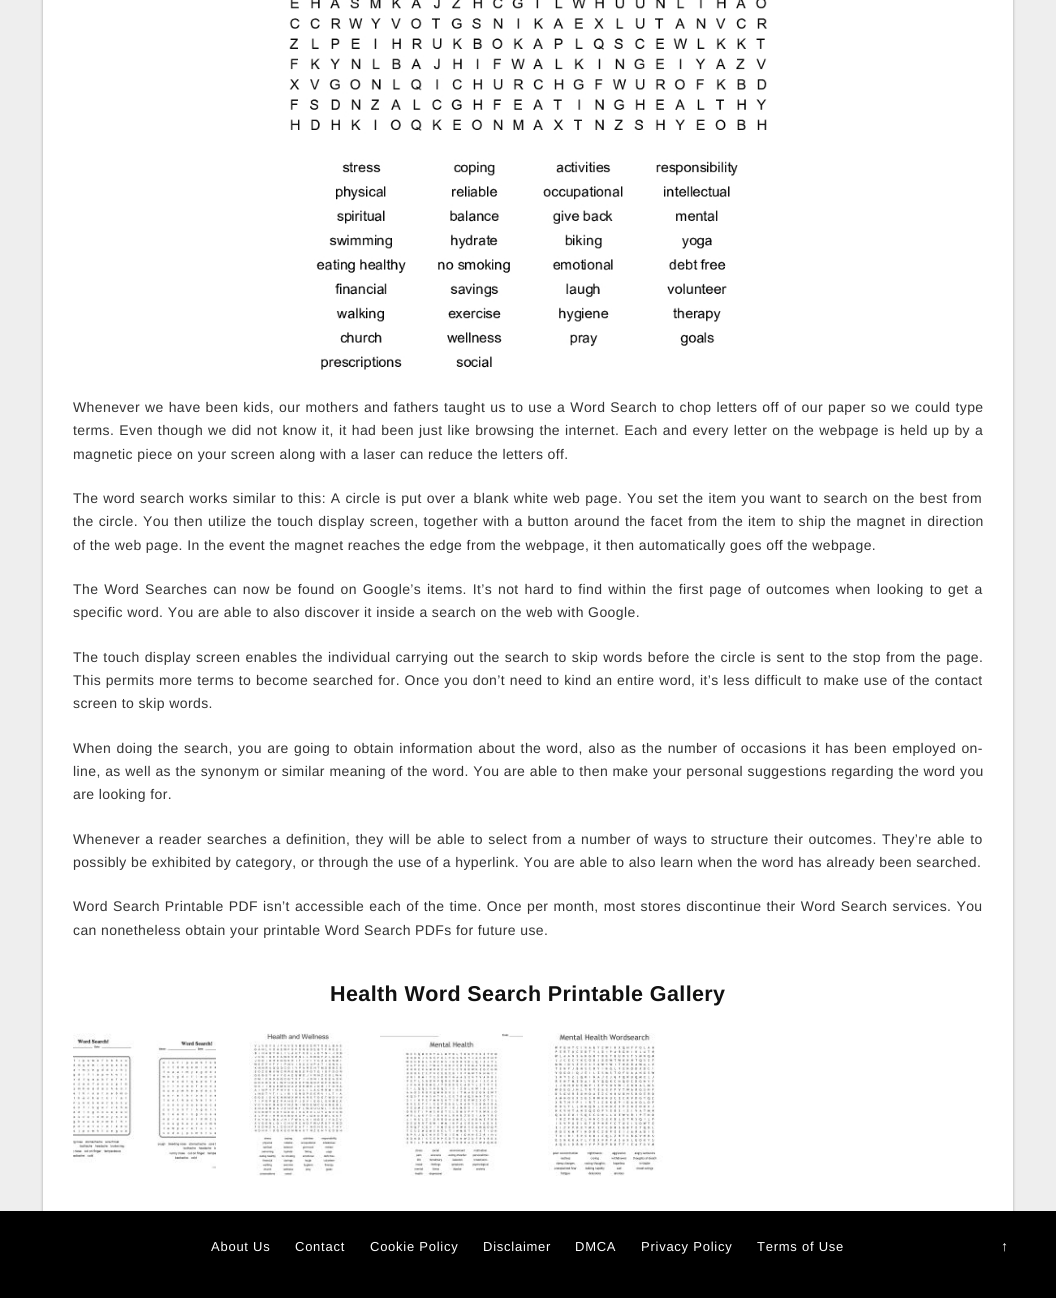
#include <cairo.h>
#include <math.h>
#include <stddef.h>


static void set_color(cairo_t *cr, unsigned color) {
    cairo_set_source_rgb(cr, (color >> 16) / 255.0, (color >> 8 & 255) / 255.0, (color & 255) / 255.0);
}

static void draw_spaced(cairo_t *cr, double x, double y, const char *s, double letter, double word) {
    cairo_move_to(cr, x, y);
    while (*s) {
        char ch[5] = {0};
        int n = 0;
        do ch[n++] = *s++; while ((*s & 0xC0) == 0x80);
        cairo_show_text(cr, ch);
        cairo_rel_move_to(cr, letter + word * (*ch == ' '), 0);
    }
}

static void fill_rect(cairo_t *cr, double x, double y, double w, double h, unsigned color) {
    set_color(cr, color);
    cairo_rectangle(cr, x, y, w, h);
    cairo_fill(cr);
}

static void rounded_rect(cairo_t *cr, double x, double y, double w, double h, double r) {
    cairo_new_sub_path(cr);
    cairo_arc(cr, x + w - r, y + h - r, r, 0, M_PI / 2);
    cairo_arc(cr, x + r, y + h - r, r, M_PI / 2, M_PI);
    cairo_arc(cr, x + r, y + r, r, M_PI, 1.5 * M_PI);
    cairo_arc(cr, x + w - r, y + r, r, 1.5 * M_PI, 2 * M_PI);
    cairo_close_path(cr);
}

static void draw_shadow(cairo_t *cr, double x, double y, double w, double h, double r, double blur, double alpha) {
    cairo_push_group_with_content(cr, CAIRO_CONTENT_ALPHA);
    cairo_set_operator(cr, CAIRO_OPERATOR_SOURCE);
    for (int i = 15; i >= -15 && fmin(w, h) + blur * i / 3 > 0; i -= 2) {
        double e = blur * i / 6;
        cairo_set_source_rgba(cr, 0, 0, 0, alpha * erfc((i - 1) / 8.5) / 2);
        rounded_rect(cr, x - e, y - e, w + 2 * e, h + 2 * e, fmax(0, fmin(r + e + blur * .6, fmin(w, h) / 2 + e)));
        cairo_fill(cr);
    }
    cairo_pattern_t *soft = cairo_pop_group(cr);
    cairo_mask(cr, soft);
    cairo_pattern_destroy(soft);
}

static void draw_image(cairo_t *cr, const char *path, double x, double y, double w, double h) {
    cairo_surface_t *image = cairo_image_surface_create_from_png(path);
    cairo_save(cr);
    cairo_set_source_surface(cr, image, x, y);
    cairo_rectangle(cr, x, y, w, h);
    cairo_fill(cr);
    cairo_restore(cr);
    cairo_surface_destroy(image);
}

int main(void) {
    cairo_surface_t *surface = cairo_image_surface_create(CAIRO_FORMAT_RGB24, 1056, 1298);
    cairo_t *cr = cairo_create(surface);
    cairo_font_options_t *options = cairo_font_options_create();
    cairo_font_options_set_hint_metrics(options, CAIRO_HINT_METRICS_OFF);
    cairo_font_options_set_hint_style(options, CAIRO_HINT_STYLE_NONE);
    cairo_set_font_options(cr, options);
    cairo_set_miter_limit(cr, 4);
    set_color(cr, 0xEEEEEE);
    cairo_paint(cr);
    fill_rect(cr, 0, 1211, 1056, 87, 0x000000);
    set_color(cr, 0x000000);
    draw_shadow(cr, 43, -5, 970, 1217, 0, 1.5, 0.3);
    fill_rect(cr, 43, 0, 970, 1211, 0xFFFFFF);
    draw_image(cr, "assets/img1.png", 289, 0, 478, 370);
    cairo_select_font_face(cr, "Liberation Sans", CAIRO_FONT_SLANT_NORMAL, CAIRO_FONT_WEIGHT_NORMAL);
    cairo_set_font_size(cr, 14);
    set_color(cr, 0x333333);
    draw_spaced(cr, 73, 412, "Whenever we have been kids, our mothers and fathers taught us to use a Word Search to chop letters off of our paper so we could type", 0.4, 0.7);
    draw_spaced(cr, 73, 435, "terms. Even though we did not know it, it had been just like browsing the internet. Each and every letter on the webpage is held up by a", 0.4, 0.75);
    draw_spaced(cr, 73, 459, "magnetic piece on your screen along with a laser can reduce the letters off.", 0.4, 0);
    draw_spaced(cr, 73, 503, "The word search works similar to this: A circle is put over a blank white web page. You set the item you want to search on the best from", 0.4, 0.6);
    draw_spaced(cr, 73, 526, "the circle. You then utilize the touch display screen, together with a button around the facet from the item to ship the magnet in direction", 0.4, 0.7);
    draw_spaced(cr, 73, 550, "of the web page. In the event the magnet reaches the edge from the webpage, it then automatically goes off the webpage.", 0.4, 0);
    draw_spaced(cr, 73, 594, "The Word Searches can now be found on Google’s items. It’s not hard to find within the first page of outcomes when looking to get a", 0.4, 1.55);
    draw_spaced(cr, 73, 617, "specific word. You are able to also discover it inside a search on the web with Google.", 0.4, 0);
    draw_spaced(cr, 73, 662, "The touch display screen enables the individual carrying out the search to skip words before the circle is sent to the stop from the page.", 0.4, 0.75);
    draw_spaced(cr, 73, 685, "This permits more terms to become searched for. Once you don’t need to kind an entire word, it’s less difficult to make use of the contact", 0.4, 0.35);
    draw_spaced(cr, 73, 708, "screen to skip words.", 0.4, 0);
    draw_spaced(cr, 73, 753, "When doing the search, you are going to obtain information about the word, also as the number of occasions it has been employed on-", 0.4, 1.05);
    draw_spaced(cr, 73, 776, "line, as well as the synonym or similar meaning of the word. You are able to then make your personal suggestions regarding the word you", 0.4, 0.2);
    draw_spaced(cr, 73, 799, "are looking for.", 0.4, 0);
    draw_spaced(cr, 73, 844, "Whenever a reader searches a definition, they will be able to select from a number of ways to structure their outcomes. They’re able to", 0.4, 1.05);
    draw_spaced(cr, 73, 867, "possibly be exhibited by category, or through the use of a hyperlink. You are able to also learn when the word has already been searched.", 0.4, 0);
    draw_spaced(cr, 73, 911, "Word Search Printable PDF isn’t accessible each of the time. Once per month, most stores discontinue their Word Search services. You", 0.4, 0.75);
    draw_spaced(cr, 73, 935, "can nonetheless obtain your printable Word Search PDFs for future use.", 0.4, 0);
    cairo_select_font_face(cr, "Liberation Sans", CAIRO_FONT_SLANT_NORMAL, CAIRO_FONT_WEIGHT_BOLD);
    cairo_set_font_size(cr, 21.5);
    set_color(cr, 0x111111);
    draw_spaced(cr, 330, 1001, "Health Word Search Printable Gallery", 0.4, 0);
    draw_image(cr, "assets/img2.png", 73, 1033, 143, 136);
    draw_image(cr, "assets/img3.png", 249, 1033, 100, 143);
    draw_image(cr, "assets/img4.png", 380, 1033, 143, 143);
    draw_image(cr, "assets/img5.png", 548, 1033, 115, 143);
    cairo_select_font_face(cr, "Liberation Sans", CAIRO_FONT_SLANT_NORMAL, CAIRO_FONT_WEIGHT_NORMAL);
    cairo_set_font_size(cr, 13);
    set_color(cr, 0xFFFFFF);
    draw_spaced(cr, 211, 1251, "About Us", 0.75, 0);
    draw_spaced(cr, 295, 1251, "Contact", 0.75, 0);
    draw_spaced(cr, 370, 1251, "Cookie Policy", 0.75, 0);
    draw_spaced(cr, 483, 1251, "Disclaimer", 0.75, 0);
    draw_spaced(cr, 575, 1251, "DMCA", 0.75, 0);
    draw_spaced(cr, 641, 1251, "Privacy Policy", 0.75, 0);
    draw_spaced(cr, 757, 1251, "Terms of Use", 0.75, 0);
    cairo_select_font_face(cr, "Liberation Sans", CAIRO_FONT_SLANT_NORMAL, CAIRO_FONT_WEIGHT_BOLD);
    cairo_set_font_size(cr, 14);
    draw_spaced(cr, 1001, 1251, "↑", 0.4, 0);
    cairo_surface_write_to_png(surface, "output.png");
    cairo_font_options_destroy(options);
    cairo_destroy(cr);
    cairo_surface_destroy(surface);
    return 0;
}
